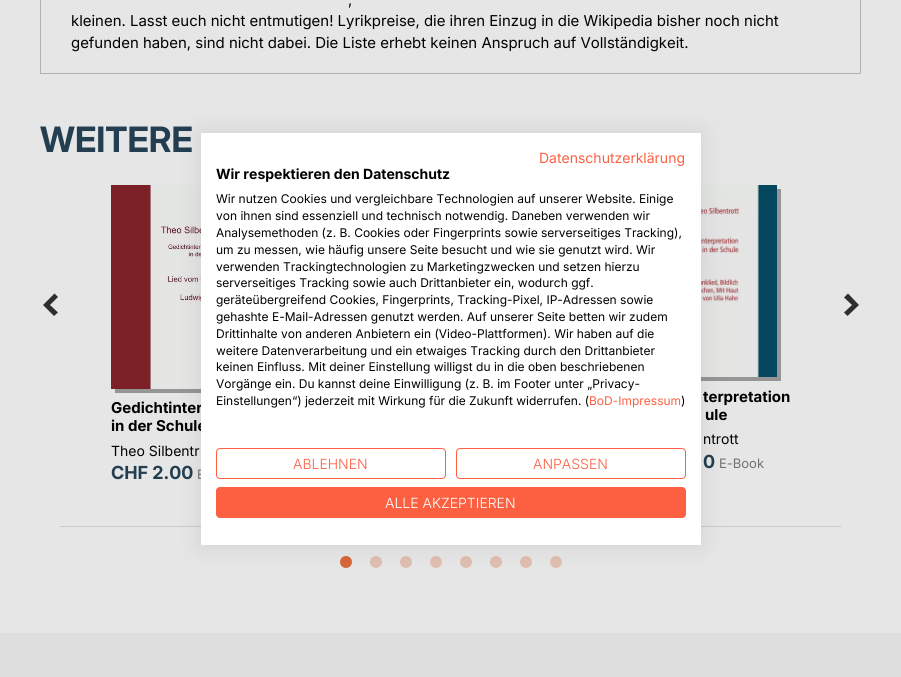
#include <cairo.h>
#include <math.h>
#include <stddef.h>


static void set_color(cairo_t *cr, unsigned color) {
    cairo_set_source_rgb(cr, (color >> 16) / 255.0, (color >> 8 & 255) / 255.0, (color & 255) / 255.0);
}

static void draw_text(cairo_t *cr, double x, double y, const char *s, const char *family, double size, int italic, int bold, unsigned color) {
    cairo_select_font_face(cr, family, italic ? CAIRO_FONT_SLANT_ITALIC : CAIRO_FONT_SLANT_NORMAL,
        bold ? CAIRO_FONT_WEIGHT_BOLD : CAIRO_FONT_WEIGHT_NORMAL);
    cairo_set_font_size(cr, size);
    set_color(cr, color);
    cairo_move_to(cr, x, y);
    cairo_show_text(cr, s);
}

static void fill_rect(cairo_t *cr, double x, double y, double w, double h, unsigned color) {
    set_color(cr, color);
    cairo_rectangle(cr, x, y, w, h);
    cairo_fill(cr);
}

static void rounded_rect(cairo_t *cr, double x, double y, double w, double h, double r) {
    cairo_new_sub_path(cr);
    cairo_arc(cr, x + w - r, y + h - r, r, 0, M_PI / 2);
    cairo_arc(cr, x + r, y + h - r, r, M_PI / 2, M_PI);
    cairo_arc(cr, x + r, y + r, r, M_PI, 1.5 * M_PI);
    cairo_arc(cr, x + w - r, y + r, r, 1.5 * M_PI, 2 * M_PI);
    cairo_close_path(cr);
}

static void draw_shadow(cairo_t *cr, double x, double y, double w, double h, double r, double blur, double alpha) {
    cairo_push_group_with_content(cr, CAIRO_CONTENT_ALPHA);
    cairo_set_operator(cr, CAIRO_OPERATOR_SOURCE);
    for (int i = 15; i >= -15 && fmin(w, h) + blur * i / 3 > 0; i -= 2) {
        double e = blur * i / 6;
        cairo_set_source_rgba(cr, 0, 0, 0, alpha * erfc((i - 1) / 8.5) / 2);
        rounded_rect(cr, x - e, y - e, w + 2 * e, h + 2 * e, fmax(0, fmin(r + e + blur * .6, fmin(w, h) / 2 + e)));
        cairo_fill(cr);
    }
    cairo_pattern_t *soft = cairo_pop_group(cr);
    cairo_mask(cr, soft);
    cairo_pattern_destroy(soft);
}

static void draw_image(cairo_t *cr, const char *path, double x, double y, double w, double h) {
    cairo_surface_t *image = cairo_image_surface_create_from_png(path);
    cairo_save(cr);
    cairo_set_source_surface(cr, image, x, y);
    cairo_rectangle(cr, x, y, w, h);
    cairo_fill(cr);
    cairo_restore(cr);
    cairo_surface_destroy(image);
}

int main(void) {
    cairo_surface_t *surface = cairo_image_surface_create(CAIRO_FORMAT_RGB24, 901, 677);
    cairo_t *cr = cairo_create(surface);
    cairo_font_options_t *options = cairo_font_options_create();
    cairo_font_options_set_hint_metrics(options, CAIRO_HINT_METRICS_OFF);
    cairo_font_options_set_hint_style(options, CAIRO_HINT_STYLE_NONE);
    cairo_set_font_options(cr, options);
    cairo_set_miter_limit(cr, 4);
    set_color(cr, 0xDEDEDE);
    cairo_paint(cr);
    fill_rect(cr, 0, 0, 901, 633, 0xE6E6E6);
    cairo_rectangle(cr, 40.5, -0.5, 820, 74);
    set_color(cr, 0xB2B2B2);
    cairo_set_line_width(cr, 1);
    cairo_stroke(cr);
    draw_text(cr, 348, 5, ",", "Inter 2", 15, 0, 0, 0x000000);
    draw_text(cr, 71, 26, "kleinen. Lasst euch nicht entmutigen! Lyrikpreise, die ihren Einzug in die Wikipedia bisher noch nicht", "Inter 2", 15, 0, 0, 0x000000);
    draw_text(cr, 71, 48, "gefunden haben, sind nicht dabei. Die Liste erhebt keinen Anspruch auf Vollständigkeit.", "Inter 2", 15, 0, 0, 0x000000);
    draw_text(cr, 40, 152, "WEITERE", "Inter", 35, 0, 1, 0x233E51);
    set_color(cr, 0x2E2E2E);
    cairo_new_path(cr);
    cairo_move_to(cr, 50, 305);
    cairo_line_to(cr, 58, 297);
    cairo_line_to(cr, 54.5, 293.5);
    cairo_line_to(cr, 43, 305);
    cairo_line_to(cr, 54, 316);
    cairo_line_to(cr, 58, 312.5);
    cairo_close_path(cr);
    cairo_fill(cr);
    cairo_new_path(cr);
    cairo_move_to(cr, 852, 305);
    cairo_line_to(cr, 844, 312.5);
    cairo_line_to(cr, 847.5, 316);
    cairo_line_to(cr, 859, 305);
    cairo_line_to(cr, 848, 293.5);
    cairo_line_to(cr, 844, 297.5);
    cairo_close_path(cr);
    cairo_fill(cr);
    set_color(cr, 0x959595);
    cairo_new_path(cr);
    cairo_move_to(cr, 115, 389);
    cairo_line_to(cr, 115, 393);
    cairo_line_to(cr, 258, 393);
    cairo_line_to(cr, 258, 189);
    cairo_line_to(cr, 254, 189);
    cairo_line_to(cr, 254, 389);
    cairo_close_path(cr);
    cairo_fill(cr);
    draw_image(cr, "assets/img1.png", 111, 185, 90, 204);
    draw_text(cr, 111, 413, "Gedichtinter", "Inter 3", 15, 0, 1, 0x000000);
    draw_text(cr, 111, 431, "in der Schule", "Inter 3", 15, 0, 1, 0x000000);
    draw_text(cr, 111, 456, "Theo Silbentr", "Inter", 14, 0, 0, 0x000000);
    draw_text(cr, 111, 479, "CHF 2.00", "Inter 2", 18, 0, 1, 0x233E51);
    draw_text(cr, 197, 479, "E", "Inter", 13, 0, 0, 0x717371);
    set_color(cr, 0x959595);
    cairo_new_path(cr);
    cairo_move_to(cr, 637, 377);
    cairo_line_to(cr, 637, 381);
    cairo_line_to(cr, 781, 381);
    cairo_line_to(cr, 781, 189);
    cairo_line_to(cr, 777, 189);
    cairo_line_to(cr, 777, 377);
    cairo_close_path(cr);
    cairo_fill(cr);
    draw_image(cr, "assets/img2.png", 701, 185, 76, 192);
    draw_text(cr, 703, 402, "terpretation", "Inter 3", 15, 0, 1, 0x000000);
    draw_text(cr, 705, 420, "ule", "Inter 3", 15, 0, 1, 0x000000);
    draw_text(cr, 703, 444, "ntrott", "Inter", 14, 0, 0, 0x000000);
    draw_text(cr, 703, 468, "0", "Inter 2", 18, 0, 1, 0x233E51);
    draw_text(cr, 719, 468, "E-Book", "Inter", 13, 0, 0, 0x717371);
    fill_rect(cr, 60, 526, 781, 1, 0xCACACA);
    draw_image(cr, "assets/img3.png", 340, 556, 12, 12);
    draw_image(cr, "assets/img4.png", 370, 556, 12, 12);
    draw_image(cr, "assets/img4.png", 400, 556, 12, 12);
    draw_image(cr, "assets/img4.png", 430, 556, 12, 12);
    draw_image(cr, "assets/img4.png", 460, 556, 12, 12);
    draw_image(cr, "assets/img4.png", 490, 556, 12, 12);
    draw_image(cr, "assets/img4.png", 520, 556, 12, 12);
    draw_image(cr, "assets/img4.png", 550, 556, 12, 12);
    set_color(cr, 0x000000);
    draw_shadow(cr, 201, 133, 500, 412, 0, 12, 0.1);
    fill_rect(cr, 201, 133, 500, 412, 0xFFFFFF);
    draw_text(cr, 539, 163, "Datenschutzerklärung", "Inter", 14, 0, 0, 0xFD6041);
    draw_text(cr, 216, 179, "Wir respektieren den Datenschutz", "Inter 3", 14, 0, 1, 0x000000);
    draw_text(cr, 216, 203, "Wir nutzen Cookies und vergleichbare Technologien auf unserer Website. Einige", "Inter", 12, 0, 0, 0x000000);
    draw_text(cr, 216, 220, "von ihnen sind essenziell und technisch notwendig. Daneben verwenden wir", "Inter", 12, 0, 0, 0x000000);
    draw_text(cr, 216, 237, "Analysemethoden (z. B. Cookies oder Fingerprints sowie serverseitiges Tracking),", "Inter", 12, 0, 0, 0x000000);
    draw_text(cr, 216, 254, "um zu messen, wie häufig unsere Seite besucht und wie sie genutzt wird. Wir", "Inter", 12, 0, 0, 0x000000);
    draw_text(cr, 216, 271, "verwenden Trackingtechnologien zu Marketingzwecken und setzen hierzu", "Inter", 12, 0, 0, 0x000000);
    draw_text(cr, 216, 287, "serverseitiges Tracking sowie auch Drittanbieter ein, wodurch ggf.", "Inter", 12, 0, 0, 0x000000);
    draw_text(cr, 216, 304, "geräteübergreifend Cookies, Fingerprints, Tracking-Pixel, IP-Adressen sowie", "Inter", 12, 0, 0, 0x000000);
    draw_text(cr, 216, 321, "gehashte E-Mail-Adressen genutzt werden. Auf unserer Seite betten wir zudem", "Inter", 12, 0, 0, 0x000000);
    draw_text(cr, 216, 338, "Drittinhalte von anderen Anbietern ein (Video-Plattformen). Wir haben auf die", "Inter", 12, 0, 0, 0x000000);
    draw_text(cr, 216, 355, "weitere Datenverarbeitung und ein etwaiges Tracking durch den Drittanbieter", "Inter", 12, 0, 0, 0x000000);
    draw_text(cr, 216, 371, "keinen Einfluss. Mit deiner Einstellung willigst du in die oben beschriebenen", "Inter", 12, 0, 0, 0x000000);
    draw_text(cr, 216, 388, "Vorgänge ein. Du kannst deine Einwilligung (z. B. im Footer unter „Privacy-", "Inter", 12, 0, 0, 0x000000);
    draw_text(cr, 216, 405, "Einstellungen“) jederzeit mit Wirkung für die Zukunft widerrufen. (", "Inter", 12, 0, 0, 0x000000);
    draw_text(cr, 589, 405, "BoD-Impressum", "Inter", 12, 0, 0, 0xFD6041);
    draw_text(cr, 681, 405, ")", "Inter", 12, 0, 0, 0x000000);
    rounded_rect(cr, 216.5, 448.5, 229, 30, 3.5);
    set_color(cr, 0xFD6041);
    cairo_stroke(cr);
    draw_text(cr, 293, 469, "ABLEHNEN", "Inter Light", 14, 0, 0, 0xFD6041);
    rounded_rect(cr, 456.5, 448.5, 229, 30, 3.5);
    cairo_stroke(cr);
    draw_text(cr, 533, 469, "ANPASSEN", "Inter Light", 14, 0, 0, 0xFD6041);
    rounded_rect(cr, 216.5, 487.5, 469, 30, 3.5);
    cairo_fill_preserve(cr);
    cairo_stroke(cr);
    draw_text(cr, 385, 508, "ALLE AKZEPTIEREN", "Inter Light", 14, 0, 0, 0xFFFFFF);
    cairo_surface_write_to_png(surface, "output.png");
    cairo_font_options_destroy(options);
    cairo_destroy(cr);
    cairo_surface_destroy(surface);
    return 0;
}
